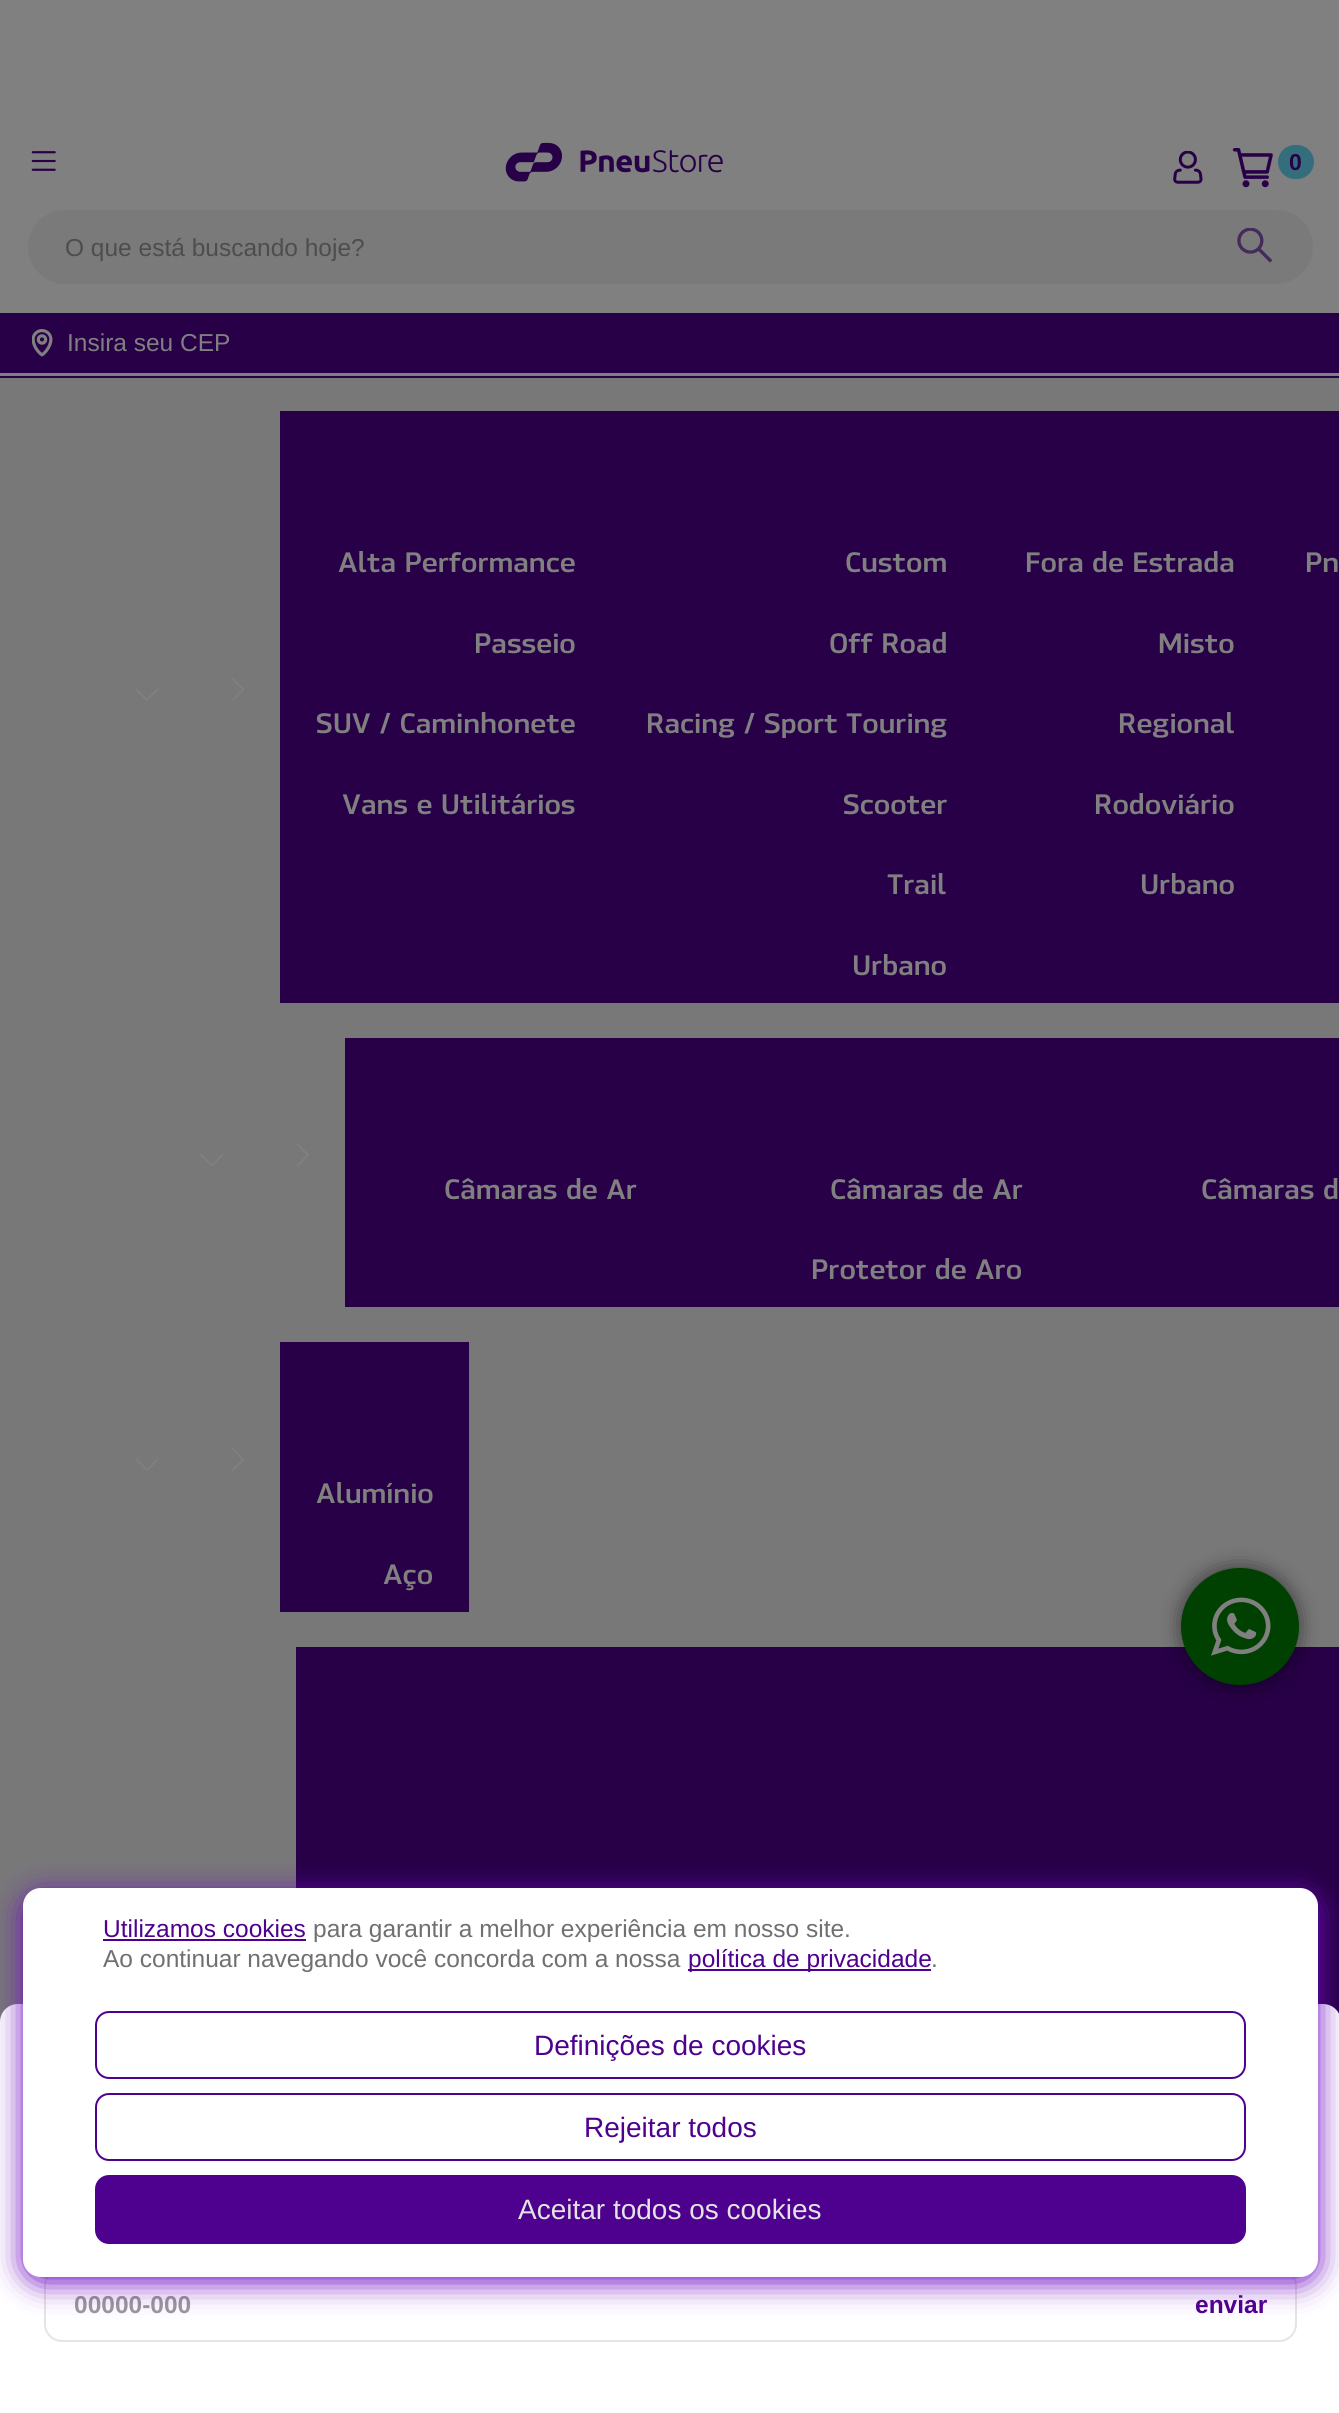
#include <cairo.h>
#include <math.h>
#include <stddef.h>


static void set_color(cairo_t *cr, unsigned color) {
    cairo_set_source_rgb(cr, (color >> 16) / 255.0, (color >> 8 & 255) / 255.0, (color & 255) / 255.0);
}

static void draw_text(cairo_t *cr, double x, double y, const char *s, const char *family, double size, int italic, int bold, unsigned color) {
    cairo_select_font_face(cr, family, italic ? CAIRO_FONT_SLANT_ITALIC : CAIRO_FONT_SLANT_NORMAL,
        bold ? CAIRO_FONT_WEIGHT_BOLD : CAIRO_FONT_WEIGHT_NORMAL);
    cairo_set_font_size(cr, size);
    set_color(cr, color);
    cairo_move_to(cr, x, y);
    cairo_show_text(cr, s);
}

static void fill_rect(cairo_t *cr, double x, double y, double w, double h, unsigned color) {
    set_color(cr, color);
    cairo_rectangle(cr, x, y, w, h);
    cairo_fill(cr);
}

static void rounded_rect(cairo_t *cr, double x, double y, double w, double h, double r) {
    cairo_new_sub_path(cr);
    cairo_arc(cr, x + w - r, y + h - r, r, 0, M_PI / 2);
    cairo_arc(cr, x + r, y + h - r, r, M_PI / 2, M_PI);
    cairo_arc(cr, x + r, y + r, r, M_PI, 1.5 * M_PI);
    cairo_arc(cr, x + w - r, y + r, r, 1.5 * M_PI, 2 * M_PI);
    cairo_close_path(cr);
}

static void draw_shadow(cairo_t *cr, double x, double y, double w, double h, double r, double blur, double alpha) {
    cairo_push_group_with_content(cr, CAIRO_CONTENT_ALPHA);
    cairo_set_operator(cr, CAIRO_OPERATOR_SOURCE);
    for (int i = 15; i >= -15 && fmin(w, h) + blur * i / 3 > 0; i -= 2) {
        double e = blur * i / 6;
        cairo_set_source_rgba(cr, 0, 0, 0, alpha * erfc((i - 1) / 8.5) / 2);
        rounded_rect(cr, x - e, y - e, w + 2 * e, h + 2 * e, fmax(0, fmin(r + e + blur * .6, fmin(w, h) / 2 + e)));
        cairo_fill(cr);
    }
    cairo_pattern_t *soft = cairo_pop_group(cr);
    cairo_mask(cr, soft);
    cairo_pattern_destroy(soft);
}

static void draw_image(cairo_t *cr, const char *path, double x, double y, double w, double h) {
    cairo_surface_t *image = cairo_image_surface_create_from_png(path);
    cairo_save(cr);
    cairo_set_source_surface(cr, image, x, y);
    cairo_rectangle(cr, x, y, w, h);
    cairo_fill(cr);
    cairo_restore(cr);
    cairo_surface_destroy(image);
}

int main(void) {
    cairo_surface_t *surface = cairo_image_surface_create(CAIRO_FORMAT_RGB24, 1339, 2413);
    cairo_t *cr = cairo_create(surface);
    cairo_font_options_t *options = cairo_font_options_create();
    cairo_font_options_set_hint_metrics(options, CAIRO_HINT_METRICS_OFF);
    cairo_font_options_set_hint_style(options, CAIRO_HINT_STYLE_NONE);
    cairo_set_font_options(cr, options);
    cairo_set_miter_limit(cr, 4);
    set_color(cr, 0x808080);
    cairo_paint(cr);
    draw_image(cr, "assets/img1.png", 31, 151, 25, 20);
    draw_image(cr, "assets/img2.png", 505, 142, 218, 40);
    draw_image(cr, "assets/img3.png", 1173, 151, 30, 33);
    draw_image(cr, "assets/img4.png", 1232, 148, 41, 40);
    set_color(cr, 0x346E7D);
    rounded_rect(cr, 1278, 145, 36, 34, 17);
    cairo_fill(cr);
    draw_text(cr, 1289, 170, "0", "Liberation Sans", 23, 0, 1, 0x270047);
    set_color(cr, 0x7A7A7A);
    rounded_rect(cr, 28, 210, 1285, 74, 37);
    cairo_fill(cr);
    draw_text(cr, 65, 256, "O que está buscando hoje?", "Liberation Sans", 24.5, 0, 0, 0x4D4D4D);
    draw_image(cr, "assets/img5.png", 1237, 228, 35, 35);
    fill_rect(cr, 0, 313, 1339, 60, 0x270047);
    draw_image(cr, "assets/img6.png", 32, 329, 21, 28);
    draw_text(cr, 67, 351, "Insira seu CEP", "Liberation Sans", 24.5, 0, 0, 0x808080);
    fill_rect(cr, 0, 378, 1339, 1644, 0x787878);
    fill_rect(cr, 0, 376, 1339, 2, 0x270047);
    draw_image(cr, "assets/img7.png", 135, 688, 24, 13);
    draw_image(cr, "assets/img8.png", 232, 678, 12, 23);
    fill_rect(cr, 280, 411, 1059, 592, 0x270047);
    draw_text(cr, 338, 572, "Alta Performance", "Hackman", 28, 0, 1, 0x808080);
    draw_text(cr, 474, 653, "Passeio", "Hackman", 28, 0, 1, 0x808080);
    draw_text(cr, 316, 733, "SUV / Caminhonete", "Hackman", 28, 0, 1, 0x808080);
    draw_text(cr, 342, 814, "Vans e Utilitários", "Hackman", 28, 0, 1, 0x808080);
    draw_text(cr, 845, 572, "Custom", "Hackman", 28, 0, 1, 0x808080);
    draw_text(cr, 829, 653, "Off Road", "Hackman", 28, 0, 1, 0x808080);
    draw_text(cr, 646, 733, "Racing / Sport Touring", "Hackman", 28, 0, 1, 0x808080);
    draw_text(cr, 843, 814, "Scooter", "Hackman", 28, 0, 1, 0x808080);
    draw_text(cr, 887, 894, "Trail", "Hackman", 28, 0, 1, 0x808080);
    draw_text(cr, 852, 975, "Urbano", "Hackman", 28, 0, 1, 0x808080);
    draw_text(cr, 1025, 572, "Fora de Estrada", "Hackman", 28, 0, 1, 0x808080);
    draw_text(cr, 1158, 653, "Misto", "Hackman", 28, 0, 1, 0x808080);
    draw_text(cr, 1118, 733, "Regional", "Hackman", 28, 0, 1, 0x808080);
    draw_text(cr, 1094, 814, "Rodoviário", "Hackman", 28, 0, 1, 0x808080);
    draw_text(cr, 1140, 894, "Urbano", "Hackman", 28, 0, 1, 0x808080);
    draw_text(cr, 1305, 572, "Pn", "Hackman", 28, 0, 1, 0x808080);
    draw_image(cr, "assets/img9.png", 200, 1154, 23, 13);
    draw_image(cr, "assets/img10.png", 296, 1143, 13, 24);
    fill_rect(cr, 345, 1038, 994, 269, 0x270047);
    draw_text(cr, 444, 1199, "Câmaras de Ar", "Hackman", 28, 0, 1, 0x808080);
    draw_text(cr, 830, 1199, "Câmaras de Ar", "Hackman", 28, 0, 1, 0x808080);
    draw_text(cr, 811, 1279, "Protetor de Aro", "Hackman", 28, 0, 1, 0x808080);
    draw_text(cr, 1201, 1199, "Câmaras d", "Hackman", 28, 0, 1, 0x808080);
    draw_image(cr, "assets/img7.png", 135, 1458, 24, 13);
    draw_image(cr, "assets/img8.png", 232, 1448, 12, 23);
    fill_rect(cr, 280, 1342, 189, 270, 0x270047);
    draw_text(cr, 316, 1503, "Alumínio", "Hackman", 28, 0, 1, 0x808080);
    draw_text(cr, 383, 1584, "Aço", "Hackman", 28, 0, 1, 0x808080);
    fill_rect(cr, 296, 1647, 1043, 367, 0x270047);
    set_color(cr, 0xFFFFFF);
    cairo_new_path(cr);
    cairo_move_to(cr, 18, 2004);
    cairo_line_to(cr, 1323, 2004);
    cairo_curve_to(cr, 1333, 2004, 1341, 2012, 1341, 2022);
    cairo_line_to(cr, 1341, 2413);
    cairo_line_to(cr, 0, 2413);
    cairo_line_to(cr, 0, 2022);
    cairo_curve_to(cr, 0, 2012, 8, 2004, 18, 2004);
    cairo_close_path(cr);
    cairo_fill(cr);
    rounded_rect(cr, 45, 2269, 1251, 72, 17);
    set_color(cr, 0xE5E5E5);
    cairo_stroke(cr);
    draw_text(cr, 74, 2313, "00000-000", "Liberation Sans", 24.5, 0, 1, 0x999999);
    draw_text(cr, 1195, 2313, "enviar", "Liberation Sans", 24.5, 0, 1, 0x4E008E);
    set_color(cr, 0x000000);
    draw_shadow(cr, 1181, 1568, 118, 117, 58.5, 10.5, 0.51);
    set_color(cr, 0x004000);
    rounded_rect(cr, 1181, 1568, 118, 117, 58.5);
    cairo_fill(cr);
    draw_image(cr, "assets/img11.png", 1211, 1597, 60, 59);
    set_color(cr, 0x6E0AC1);
    draw_shadow(cr, 23, 1894, 1295, 388, 18, 15, 1);
    set_color(cr, 0xFFFFFF);
    rounded_rect(cr, 23, 1888, 1295, 389, 18);
    cairo_fill(cr);
    draw_text(cr, 103, 1937, "Utilizamos cookies", "Liberation Sans", 24.5, 0, 0, 0x4E008E);
    fill_rect(cr, 103, 1939, 203, 2, 0x4E008E);
    draw_text(cr, 313, 1937, "para garantir a melhor experiência em nosso site.", "Liberation Sans", 24.5, 0, 0, 0x707070);
    draw_text(cr, 103, 1967, "Ao continuar navegando você concorda com a nossa", "Liberation Sans", 24.5, 0, 0, 0x707070);
    fill_rect(cr, 688, 1969, 243, 2, 0x4E008E);
    draw_text(cr, 688, 1967, "política de privacidade", "Liberation Sans", 24.5, 0, 0, 0x4E008E);
    draw_text(cr, 931, 1967, ".", "Liberation Sans", 24.5, 0, 0, 0x707070);
    rounded_rect(cr, 96, 2012, 1149, 66, 13);
    set_color(cr, 0x4E008E);
    cairo_stroke(cr);
    draw_text(cr, 534, 2055, "Definições de cookies", "Liberation Sans", 28, 0, 0, 0x4E008E);
    rounded_rect(cr, 96, 2094, 1149, 66, 13);
    cairo_stroke(cr);
    draw_text(cr, 584, 2137, "Rejeitar todos", "Liberation Sans", 28, 0, 0, 0x4E008E);
    rounded_rect(cr, 96, 2176, 1149, 67, 13);
    cairo_fill_preserve(cr);
    cairo_stroke(cr);
    draw_text(cr, 518, 2219, "Aceitar todos os cookies", "Liberation Sans", 28, 0, 0, 0xE3E3E3);
    cairo_surface_write_to_png(surface, "output.png");
    cairo_font_options_destroy(options);
    cairo_destroy(cr);
    cairo_surface_destroy(surface);
    return 0;
}
